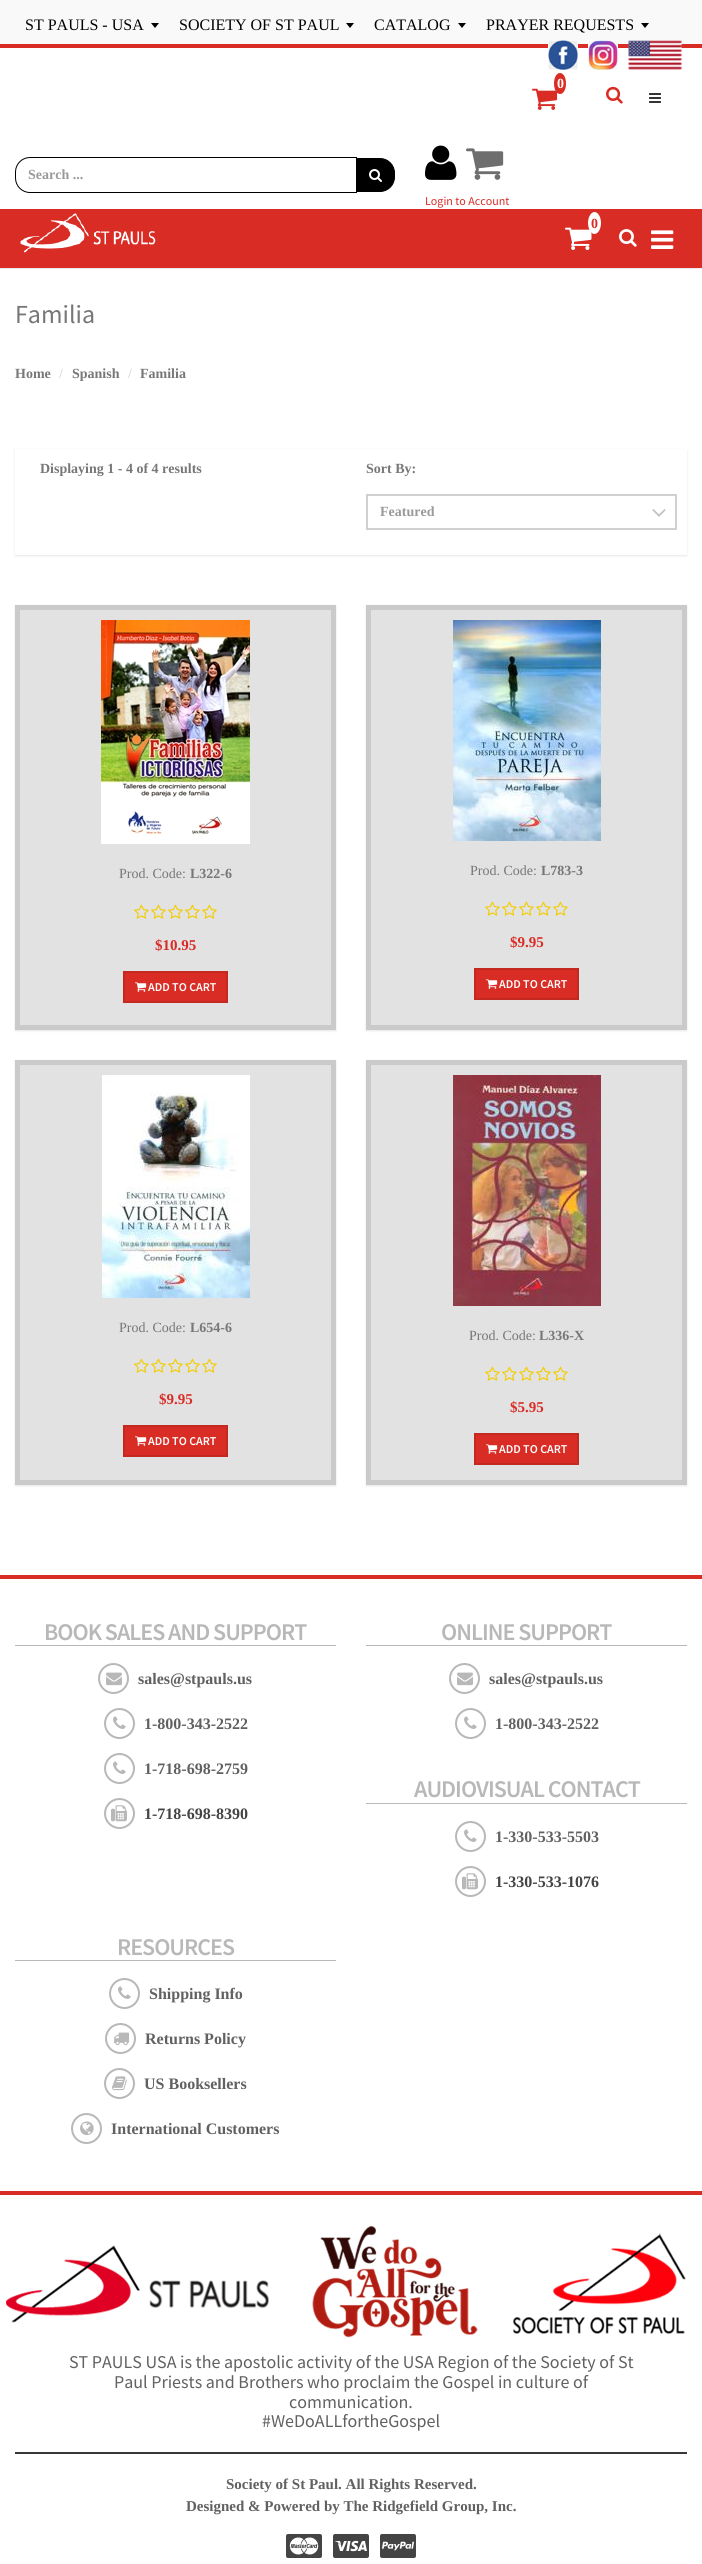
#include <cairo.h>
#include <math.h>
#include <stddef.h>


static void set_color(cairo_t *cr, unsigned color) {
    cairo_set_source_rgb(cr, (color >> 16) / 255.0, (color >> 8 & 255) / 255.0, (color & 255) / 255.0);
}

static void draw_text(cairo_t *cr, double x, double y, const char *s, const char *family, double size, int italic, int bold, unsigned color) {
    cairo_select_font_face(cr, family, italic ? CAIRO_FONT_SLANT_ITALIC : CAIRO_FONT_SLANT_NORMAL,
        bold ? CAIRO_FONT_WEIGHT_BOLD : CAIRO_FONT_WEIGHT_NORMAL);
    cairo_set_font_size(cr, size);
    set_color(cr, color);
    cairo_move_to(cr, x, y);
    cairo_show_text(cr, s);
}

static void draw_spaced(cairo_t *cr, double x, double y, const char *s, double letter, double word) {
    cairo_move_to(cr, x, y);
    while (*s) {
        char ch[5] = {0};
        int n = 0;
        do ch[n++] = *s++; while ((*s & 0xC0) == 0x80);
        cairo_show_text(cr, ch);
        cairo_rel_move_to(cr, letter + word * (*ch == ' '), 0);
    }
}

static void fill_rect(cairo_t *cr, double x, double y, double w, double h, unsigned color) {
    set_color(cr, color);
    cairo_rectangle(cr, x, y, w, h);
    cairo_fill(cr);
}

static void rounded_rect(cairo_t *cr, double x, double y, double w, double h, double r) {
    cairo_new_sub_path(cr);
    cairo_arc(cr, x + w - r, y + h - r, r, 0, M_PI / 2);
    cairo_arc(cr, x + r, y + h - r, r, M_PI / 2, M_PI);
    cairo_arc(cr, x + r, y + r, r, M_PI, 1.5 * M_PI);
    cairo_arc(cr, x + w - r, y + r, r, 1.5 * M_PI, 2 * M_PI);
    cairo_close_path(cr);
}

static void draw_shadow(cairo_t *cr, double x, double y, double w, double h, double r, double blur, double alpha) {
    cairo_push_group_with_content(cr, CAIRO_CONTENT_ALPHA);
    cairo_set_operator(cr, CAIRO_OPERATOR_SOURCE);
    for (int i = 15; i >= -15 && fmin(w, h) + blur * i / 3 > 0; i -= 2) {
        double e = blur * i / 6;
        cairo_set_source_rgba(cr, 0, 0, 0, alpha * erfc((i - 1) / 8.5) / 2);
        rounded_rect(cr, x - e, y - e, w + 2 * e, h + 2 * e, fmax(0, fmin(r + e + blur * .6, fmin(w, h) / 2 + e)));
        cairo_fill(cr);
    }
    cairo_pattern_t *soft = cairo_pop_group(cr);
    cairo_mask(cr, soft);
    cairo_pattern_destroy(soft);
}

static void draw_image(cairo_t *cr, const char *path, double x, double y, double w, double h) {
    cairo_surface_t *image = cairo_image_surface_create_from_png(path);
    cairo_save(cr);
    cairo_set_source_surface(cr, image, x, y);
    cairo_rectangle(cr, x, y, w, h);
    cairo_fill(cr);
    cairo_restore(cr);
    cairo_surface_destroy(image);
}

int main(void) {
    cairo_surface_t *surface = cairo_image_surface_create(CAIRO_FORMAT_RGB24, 702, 2564);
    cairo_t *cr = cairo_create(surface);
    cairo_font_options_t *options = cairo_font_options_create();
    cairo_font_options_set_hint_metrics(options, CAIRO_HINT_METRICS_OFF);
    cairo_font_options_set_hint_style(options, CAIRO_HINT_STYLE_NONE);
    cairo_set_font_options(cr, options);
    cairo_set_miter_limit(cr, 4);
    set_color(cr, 0xFFFFFF);
    cairo_paint(cr);
    fill_rect(cr, 0, 0, 702, 44, 0xF9F9F9);
    fill_rect(cr, 0, 44, 702, 4, 0xD92C25);
    draw_text(cr, 25, 30, "ST PAULS - USA", "Liberation Serif", 16, 0, 0, 0x000000);
    cairo_new_path(cr);
    cairo_move_to(cr, 151, 23);
    cairo_line_to(cr, 159, 23);
    cairo_line_to(cr, 155, 28);
    cairo_close_path(cr);
    cairo_fill(cr);
    draw_text(cr, 179, 30, "SOCIETY OF ST PAUL", "Liberation Serif", 16, 0, 0, 0x000000);
    cairo_new_path(cr);
    cairo_move_to(cr, 346, 23);
    cairo_line_to(cr, 354, 23);
    cairo_line_to(cr, 350, 28);
    cairo_close_path(cr);
    cairo_fill(cr);
    draw_text(cr, 374, 30, "CATALOG", "Liberation Serif", 16, 0, 0, 0x000000);
    cairo_new_path(cr);
    cairo_move_to(cr, 458, 23);
    cairo_line_to(cr, 466, 23);
    cairo_line_to(cr, 462, 28);
    cairo_close_path(cr);
    cairo_fill(cr);
    draw_text(cr, 486, 30, "PRAYER REQUESTS", "Liberation Serif", 16, 0, 0, 0x000000);
    cairo_new_path(cr);
    cairo_move_to(cr, 641, 23);
    cairo_line_to(cr, 649, 23);
    cairo_line_to(cr, 645, 28);
    cairo_close_path(cr);
    cairo_fill(cr);
    draw_image(cr, "assets/img1.png", 548, 40, 30, 30);
    draw_image(cr, "assets/img2.png", 588, 40, 30, 30);
    draw_image(cr, "assets/img3.png", 628, 40, 54, 30);
    draw_image(cr, "assets/img4.png", 532, 88, 26, 22);
    set_color(cr, 0xD92C25);
    cairo_new_path(cr);
    cairo_move_to(cr, 560, 73);
    cairo_curve_to(cr, 563.5, 73, 566, 77.5, 566, 83.5);
    cairo_curve_to(cr, 566, 89.5, 563.5, 94, 560, 94);
    cairo_curve_to(cr, 556.5, 94, 554, 89.5, 554, 83.5);
    cairo_curve_to(cr, 554, 77.5, 556.5, 73, 560, 73);
    cairo_close_path(cr);
    cairo_fill(cr);
    draw_text(cr, 557, 88, "0", "Liberation Serif", 14, 0, 1, 0xFFFFFF);
    draw_image(cr, "assets/img5.png", 606, 86, 17, 18);
    draw_image(cr, "assets/img6.png", 649, 93, 12, 10);
    cairo_new_path(cr);
    cairo_move_to(cr, 30, 157.5);
    cairo_line_to(cr, 356.5, 157.5);
    cairo_line_to(cr, 356.5, 192.5);
    cairo_line_to(cr, 30, 192.5);
    cairo_curve_to(cr, 22, 192.5, 15.5, 186, 15.5, 178);
    cairo_line_to(cr, 15.5, 172);
    cairo_curve_to(cr, 15.5, 164, 22, 157.5, 30, 157.5);
    cairo_close_path(cr);
    set_color(cr, 0x000000);
    cairo_set_line_width(cr, 1);
    cairo_stroke(cr);
    draw_text(cr, 28, 179, "Search ...", "Liberation Serif", 14, 0, 1, 0x999999);
    set_color(cr, 0x000000);
    cairo_new_path(cr);
    cairo_move_to(cr, 356.5, 158.5);
    cairo_line_to(cr, 380, 158.5);
    cairo_curve_to(cr, 388, 158.5, 394.5, 165, 394.5, 173);
    cairo_line_to(cr, 394.5, 177);
    cairo_curve_to(cr, 394.5, 185, 388, 191.5, 380, 191.5);
    cairo_line_to(cr, 356.5, 191.5);
    cairo_close_path(cr);
    cairo_fill_preserve(cr);
    cairo_stroke(cr);
    draw_image(cr, "assets/img7.png", 369, 169, 13, 13);
    draw_image(cr, "assets/img8.png", 425, 145, 32, 35);
    draw_image(cr, "assets/img9.png", 466, 148, 38, 32);
    draw_text(cr, 425, 205, "Login to Account", "Source Sans Pro", 12, 0, 0, 0xD92C25);
    fill_rect(cr, 0, 209, 702, 59, 0xD92C25);
    fill_rect(cr, 0, 268, 702, 1, 0xEBEBEB);
    draw_image(cr, "assets/img10.png", 20, 213, 136, 40);
    draw_image(cr, "assets/img11.png", 565, 227, 27, 23);
    set_color(cr, 0xFFFFFF);
    cairo_new_path(cr);
    cairo_move_to(cr, 594.5, 212);
    cairo_curve_to(cr, 598, 212, 601, 217, 601, 223);
    cairo_curve_to(cr, 601, 229, 598, 234, 594.5, 234);
    cairo_curve_to(cr, 591, 234, 588, 229, 588, 223);
    cairo_curve_to(cr, 588, 217, 591, 212, 594.5, 212);
    cairo_close_path(cr);
    cairo_fill(cr);
    draw_text(cr, 591, 228, "0", "Liberation Serif", 14, 0, 1, 0xD92C25);
    draw_image(cr, "assets/img12.png", 619, 229, 18, 18);
    draw_image(cr, "assets/img13.png", 651, 230, 23, 19);
    draw_text(cr, 15, 323, "Familia", "Source Sans Pro", 26, 0, 0, 0x777777);
    draw_text(cr, 15, 378, "Home", "Liberation Serif", 14, 0, 1, 0x777777);
    draw_text(cr, 59, 378, "/", "Liberation Serif", 14, 0, 0, 0xCCCCCC);
    draw_text(cr, 72, 378, "Spanish", "Liberation Serif", 14, 0, 1, 0x777777);
    draw_text(cr, 128, 378, "/", "Liberation Serif", 14, 0, 0, 0xCCCCCC);
    draw_text(cr, 140, 378, "Familia", "Liberation Serif", 14, 0, 1, 0x777777);
    cairo_save(cr);
    cairo_set_fill_rule(cr, CAIRO_FILL_RULE_EVEN_ODD);
    cairo_new_path(cr);
    cairo_move_to(cr, 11, 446);
    cairo_line_to(cr, 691, 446);
    cairo_line_to(cr, 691, 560);
    cairo_line_to(cr, 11, 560);
    cairo_close_path(cr);
    cairo_move_to(cr, 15, 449);
    cairo_line_to(cr, 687, 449);
    cairo_line_to(cr, 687, 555);
    cairo_line_to(cr, 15, 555);
    cairo_close_path(cr);
    cairo_clip(cr);
    set_color(cr, 0x000000);
    draw_shadow(cr, 15, 450, 672, 106, 0, 1, 0.1);
    cairo_restore(cr);
    draw_text(cr, 40, 473, "Displaying 1 - 4 of 4 results", "Liberation Serif", 14, 0, 1, 0x777777);
    draw_text(cr, 366, 473, "Sort By:", "Liberation Serif", 14, 0, 1, 0x777777);
    draw_image(cr, "assets/img14.png", 652, 509, 14, 8);
    cairo_rectangle(cr, 367, 495, 309, 34);
    set_color(cr, 0xD0D0D0);
    cairo_set_line_width(cr, 2);
    cairo_stroke(cr);
    draw_text(cr, 380, 516, "Featured", "Liberation Serif", 14, 0, 1, 0x999999);
    set_color(cr, 0x000000);
    draw_shadow(cr, 15, 606, 321, 425, 0, 1, 0.1);
    set_color(cr, 0xE2E2E2);
    cairo_rectangle(cr, 17.5, 607.5, 316, 420);
    cairo_fill_preserve(cr);
    set_color(cr, 0xCACACA);
    cairo_set_line_width(cr, 5);
    cairo_stroke(cr);
    draw_image(cr, "assets/img15.png", 101, 620, 149, 224);
    draw_text(cr, 119, 878, "Prod. Code:", "Liberation Serif", 14, 0, 0, 0x777777);
    draw_text(cr, 190, 878, "L322-6", "Liberation Serif", 14, 0, 1, 0x777777);
    draw_image(cr, "assets/img16.png", 134, 904, 15, 15);
    draw_image(cr, "assets/img16.png", 151, 904, 15, 15);
    draw_image(cr, "assets/img16.png", 168, 904, 15, 15);
    draw_image(cr, "assets/img16.png", 185, 904, 15, 15);
    draw_image(cr, "assets/img16.png", 202, 904, 15, 15);
    draw_text(cr, 155, 950, "$10.95", "Liberation Serif", 15, 0, 1, 0xD92C25);
    cairo_rectangle(cr, 124, 972, 103, 30);
    cairo_fill_preserve(cr);
    set_color(cr, 0xC32821);
    cairo_set_line_width(cr, 2);
    cairo_stroke(cr);
    draw_image(cr, "assets/img17.png", 135, 982, 12, 10);
    draw_text(cr, 148, 991, "ADD TO CART", "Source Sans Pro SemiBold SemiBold", 12, 0, 0, 0xFFFFFF);
    set_color(cr, 0x000000);
    draw_shadow(cr, 366, 606, 321, 425, 0, 1, 0.1);
    set_color(cr, 0xE2E2E2);
    cairo_rectangle(cr, 368.5, 607.5, 316, 420);
    cairo_fill_preserve(cr);
    set_color(cr, 0xCACACA);
    cairo_set_line_width(cr, 5);
    cairo_stroke(cr);
    draw_image(cr, "assets/img18.png", 453, 620, 148, 221);
    draw_text(cr, 470, 875, "Prod. Code:", "Liberation Serif", 14, 0, 0, 0x777777);
    draw_text(cr, 541, 875, "L783-3", "Liberation Serif", 14, 0, 1, 0x777777);
    draw_image(cr, "assets/img16.png", 485, 901, 15, 15);
    draw_image(cr, "assets/img16.png", 502, 901, 15, 15);
    draw_image(cr, "assets/img16.png", 519, 901, 15, 15);
    draw_image(cr, "assets/img16.png", 536, 901, 15, 15);
    draw_image(cr, "assets/img16.png", 553, 901, 15, 15);
    draw_text(cr, 510, 947, "$9.95", "Liberation Serif", 15, 0, 1, 0xD92C25);
    cairo_rectangle(cr, 475, 969, 103, 30);
    cairo_fill_preserve(cr);
    set_color(cr, 0xC32821);
    cairo_set_line_width(cr, 2);
    cairo_stroke(cr);
    draw_image(cr, "assets/img17.png", 486, 979, 12, 10);
    draw_text(cr, 499, 988, "ADD TO CART", "Source Sans Pro SemiBold SemiBold", 12, 0, 0, 0xFFFFFF);
    set_color(cr, 0x000000);
    draw_shadow(cr, 15, 1061, 321, 425, 0, 1, 0.1);
    set_color(cr, 0xE2E2E2);
    cairo_rectangle(cr, 17.5, 1062.5, 316, 420);
    cairo_fill_preserve(cr);
    set_color(cr, 0xCACACA);
    cairo_set_line_width(cr, 5);
    cairo_stroke(cr);
    draw_image(cr, "assets/img19.png", 102, 1075, 148, 223);
    draw_text(cr, 119, 1332, "Prod. Code:", "Liberation Serif", 14, 0, 0, 0x777777);
    draw_text(cr, 190, 1332, "L654-6", "Liberation Serif", 14, 0, 1, 0x777777);
    draw_image(cr, "assets/img16.png", 134, 1358, 15, 15);
    draw_image(cr, "assets/img16.png", 151, 1358, 15, 15);
    draw_image(cr, "assets/img16.png", 168, 1358, 15, 15);
    draw_image(cr, "assets/img16.png", 185, 1358, 15, 15);
    draw_image(cr, "assets/img16.png", 202, 1358, 15, 15);
    draw_text(cr, 159, 1404, "$9.95", "Liberation Serif", 15, 0, 1, 0xD92C25);
    cairo_rectangle(cr, 124, 1426, 103, 30);
    cairo_fill_preserve(cr);
    set_color(cr, 0xC32821);
    cairo_set_line_width(cr, 2);
    cairo_stroke(cr);
    draw_image(cr, "assets/img17.png", 135, 1436, 12, 10);
    draw_text(cr, 148, 1445, "ADD TO CART", "Source Sans Pro SemiBold SemiBold", 12, 0, 0, 0xFFFFFF);
    set_color(cr, 0x000000);
    draw_shadow(cr, 366, 1061, 321, 425, 0, 1, 0.1);
    set_color(cr, 0xE2E2E2);
    cairo_rectangle(cr, 368.5, 1062.5, 316, 420);
    cairo_fill_preserve(cr);
    set_color(cr, 0xCACACA);
    cairo_set_line_width(cr, 5);
    cairo_stroke(cr);
    draw_image(cr, "assets/img20.png", 453, 1075, 148, 231);
    draw_text(cr, 469, 1340, "Prod. Code:", "Liberation Serif", 14, 0, 0, 0x777777);
    draw_text(cr, 539, 1340, "L336-X", "Liberation Serif", 14, 0, 1, 0x777777);
    draw_image(cr, "assets/img16.png", 485, 1366, 15, 15);
    draw_image(cr, "assets/img16.png", 502, 1366, 15, 15);
    draw_image(cr, "assets/img16.png", 519, 1366, 15, 15);
    draw_image(cr, "assets/img16.png", 536, 1366, 15, 15);
    draw_image(cr, "assets/img16.png", 553, 1366, 15, 15);
    draw_text(cr, 510, 1412, "$5.95", "Liberation Serif", 15, 0, 1, 0xD92C25);
    cairo_rectangle(cr, 475, 1434, 103, 30);
    cairo_fill_preserve(cr);
    set_color(cr, 0xC32821);
    cairo_set_line_width(cr, 2);
    cairo_stroke(cr);
    draw_image(cr, "assets/img17.png", 486, 1444, 12, 10);
    draw_text(cr, 499, 1453, "ADD TO CART", "Source Sans Pro SemiBold SemiBold", 12, 0, 0, 0xFFFFFF);
    fill_rect(cr, 0, 1575, 702, 4, 0xD92C25);
    fill_rect(cr, 15, 1645, 321, 1, 0xB8B8B8);
    cairo_set_font_size(cr, 24);
    draw_spaced(cr, 44, 1640, "BOOK SALES AND SUPPORT", -1, 0);
    cairo_new_path(cr);
    cairo_arc(cr, 113.5, 1678.5, 14.5, 0, 2 * M_PI);
    cairo_stroke(cr);
    draw_image(cr, "assets/img21.png", 106, 1672, 16, 14);
    draw_text(cr, 138, 1684, "sales@stpauls.us", "Liberation Serif", 16, 0, 1, 0x616161);
    cairo_new_path(cr);
    cairo_arc(cr, 119.5, 1723.5, 14.5, 0, 2 * M_PI);
    set_color(cr, 0xB8B8B8);
    cairo_stroke(cr);
    draw_image(cr, "assets/img22.png", 113, 1716, 13, 13);
    draw_text(cr, 144, 1729, "1-800-343-2522", "Liberation Serif", 16, 0, 1, 0x616161);
    cairo_new_path(cr);
    cairo_arc(cr, 119.5, 1768.5, 14.5, 0, 2 * M_PI);
    set_color(cr, 0xB8B8B8);
    cairo_stroke(cr);
    draw_image(cr, "assets/img22.png", 113, 1761, 13, 13);
    draw_text(cr, 144, 1774, "1-718-698-2759", "Liberation Serif", 16, 0, 1, 0x616161);
    cairo_new_path(cr);
    cairo_arc(cr, 119.5, 1813.5, 14.5, 0, 2 * M_PI);
    set_color(cr, 0xB8B8B8);
    cairo_stroke(cr);
    draw_image(cr, "assets/img23.png", 111, 1805, 16, 17);
    draw_text(cr, 144, 1819, "1-718-698-8390", "Liberation Serif", 16, 0, 1, 0x444444);
    fill_rect(cr, 366, 1645, 321, 1, 0xB8B8B8);
    cairo_select_font_face(cr, "Source Sans Pro SemiBold SemiBold", CAIRO_FONT_SLANT_NORMAL, CAIRO_FONT_WEIGHT_NORMAL);
    cairo_set_font_size(cr, 24);
    draw_spaced(cr, 441, 1640, "ONLINE SUPPORT", -1, 0);
    cairo_new_path(cr);
    cairo_arc(cr, 464.5, 1678.5, 14.5, 0, 2 * M_PI);
    cairo_stroke(cr);
    draw_image(cr, "assets/img21.png", 457, 1672, 16, 14);
    draw_text(cr, 489, 1684, "sales@stpauls.us", "Liberation Serif", 16, 0, 1, 0x616161);
    cairo_new_path(cr);
    cairo_arc(cr, 470.5, 1723.5, 14.5, 0, 2 * M_PI);
    set_color(cr, 0xB8B8B8);
    cairo_stroke(cr);
    draw_image(cr, "assets/img22.png", 464, 1716, 13, 13);
    draw_text(cr, 495, 1729, "1-800-343-2522", "Liberation Serif", 16, 0, 1, 0x616161);
    fill_rect(cr, 366, 1803, 321, 1, 0xB8B8B8);
    cairo_select_font_face(cr, "Source Sans Pro SemiBold SemiBold", CAIRO_FONT_SLANT_NORMAL, CAIRO_FONT_WEIGHT_NORMAL);
    cairo_set_font_size(cr, 24);
    draw_spaced(cr, 414, 1797, "AUDIOVISUAL CONTACT", -1, 0);
    cairo_new_path(cr);
    cairo_arc(cr, 470.5, 1836.5, 14.5, 0, 2 * M_PI);
    cairo_stroke(cr);
    draw_image(cr, "assets/img22.png", 464, 1829, 13, 13);
    draw_text(cr, 495, 1842, "1-330-533-5503", "Liberation Serif", 16, 0, 1, 0x616161);
    cairo_new_path(cr);
    cairo_arc(cr, 470.5, 1881.5, 14.5, 0, 2 * M_PI);
    set_color(cr, 0xB8B8B8);
    cairo_stroke(cr);
    draw_image(cr, "assets/img23.png", 462, 1873, 16, 17);
    draw_text(cr, 495, 1887, "1-330-533-1076", "Liberation Serif", 16, 0, 1, 0x444444);
    fill_rect(cr, 15, 1960, 321, 1, 0xB8B8B8);
    cairo_select_font_face(cr, "Source Sans Pro SemiBold SemiBold", CAIRO_FONT_SLANT_NORMAL, CAIRO_FONT_WEIGHT_NORMAL);
    cairo_set_font_size(cr, 24);
    draw_spaced(cr, 117, 1955, "RESOURCES", -1, 0);
    cairo_new_path(cr);
    cairo_arc(cr, 124.5, 1993.5, 14.5, 0, 2 * M_PI);
    cairo_stroke(cr);
    draw_image(cr, "assets/img22.png", 118, 1986, 13, 13);
    draw_text(cr, 149, 1999, "Shipping Info", "Liberation Serif", 16, 0, 1, 0x616161);
    cairo_new_path(cr);
    cairo_arc(cr, 120.5, 2038.5, 14.5, 0, 2 * M_PI);
    set_color(cr, 0xB8B8B8);
    cairo_stroke(cr);
    draw_image(cr, "assets/img24.png", 113, 2032, 16, 14);
    draw_text(cr, 145, 2044, "Returns Policy", "Liberation Serif", 16, 0, 1, 0x616161);
    cairo_new_path(cr);
    cairo_arc(cr, 119.5, 2083.5, 14.5, 0, 2 * M_PI);
    set_color(cr, 0xB8B8B8);
    cairo_stroke(cr);
    draw_image(cr, "assets/img25.png", 112, 2076, 15, 15);
    draw_text(cr, 144, 2089, "US Booksellers", "Liberation Serif", 16, 0, 1, 0x616161);
    cairo_new_path(cr);
    cairo_arc(cr, 86.5, 2128.5, 14.5, 0, 2 * M_PI);
    set_color(cr, 0xB8B8B8);
    cairo_stroke(cr);
    draw_image(cr, "assets/img26.png", 80, 2121, 14, 15);
    draw_text(cr, 111, 2134, "International Customers", "Liberation Serif", 16, 0, 1, 0x616161);
    fill_rect(cr, 0, 2191, 702, 4, 0xD92C25);
    draw_image(cr, "assets/img27.png", 6, 2245, 263, 78);
    draw_image(cr, "assets/img28.png", 312, 2225, 166, 113);
    draw_image(cr, "assets/img29.png", 512, 2233, 174, 101);
    draw_text(cr, 69, 2368, "ST PAULS USA is the apostolic activity of the USA Region of the Society of St", "Source Sans Pro", 18, 0, 0, 0x616161);
    draw_text(cr, 114, 2388, "Paul Priests and Brothers who proclaim the Gospel in culture of", "Source Sans Pro", 18, 0, 0, 0x616161);
    draw_text(cr, 289, 2408, "communication.", "Source Sans Pro", 18, 0, 0, 0x616161);
    draw_text(cr, 262, 2427, "#WeDoALLfortheGospel", "Source Sans Pro", 18, 0, 0, 0x616161);
    fill_rect(cr, 15, 2452, 672, 2, 0x373737);
    draw_text(cr, 226, 2489, "Society of St Paul. All Rights Reserved.", "Liberation Serif", 15, 0, 1, 0x616161);
    draw_text(cr, 186, 2511, "Designed & Powered by The Ridgefield Group, Inc.", "Liberation Serif", 15, 0, 1, 0x616161);
    draw_image(cr, "assets/img30.png", 286, 2534, 36, 24);
    draw_image(cr, "assets/img31.png", 333, 2534, 36, 24);
    draw_image(cr, "assets/img32.png", 380, 2534, 36, 24);
    cairo_surface_write_to_png(surface, "output.png");
    cairo_font_options_destroy(options);
    cairo_destroy(cr);
    cairo_surface_destroy(surface);
    return 0;
}
